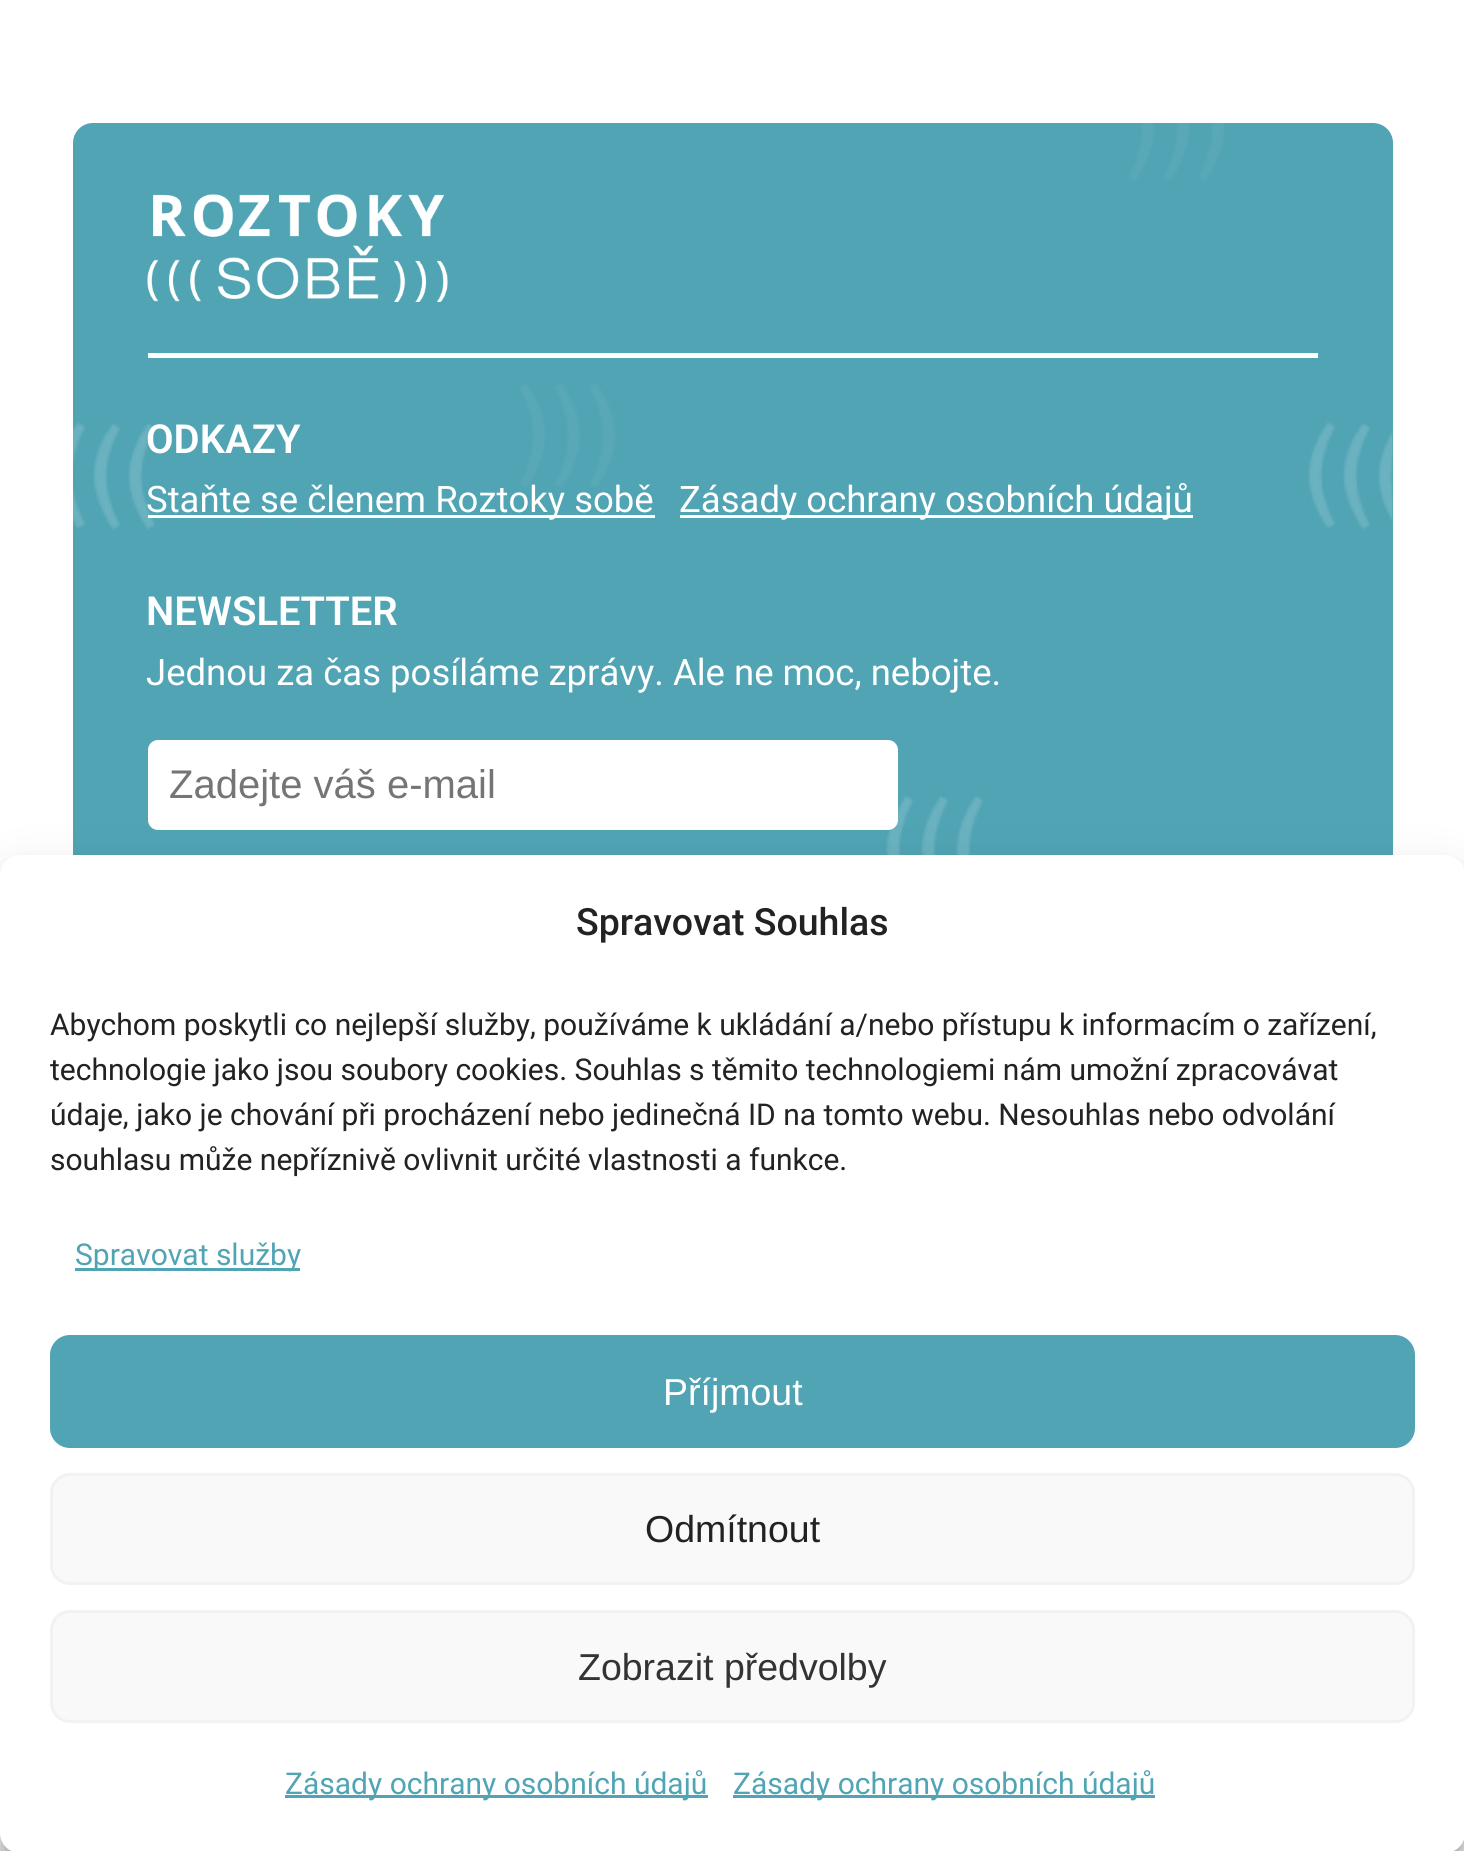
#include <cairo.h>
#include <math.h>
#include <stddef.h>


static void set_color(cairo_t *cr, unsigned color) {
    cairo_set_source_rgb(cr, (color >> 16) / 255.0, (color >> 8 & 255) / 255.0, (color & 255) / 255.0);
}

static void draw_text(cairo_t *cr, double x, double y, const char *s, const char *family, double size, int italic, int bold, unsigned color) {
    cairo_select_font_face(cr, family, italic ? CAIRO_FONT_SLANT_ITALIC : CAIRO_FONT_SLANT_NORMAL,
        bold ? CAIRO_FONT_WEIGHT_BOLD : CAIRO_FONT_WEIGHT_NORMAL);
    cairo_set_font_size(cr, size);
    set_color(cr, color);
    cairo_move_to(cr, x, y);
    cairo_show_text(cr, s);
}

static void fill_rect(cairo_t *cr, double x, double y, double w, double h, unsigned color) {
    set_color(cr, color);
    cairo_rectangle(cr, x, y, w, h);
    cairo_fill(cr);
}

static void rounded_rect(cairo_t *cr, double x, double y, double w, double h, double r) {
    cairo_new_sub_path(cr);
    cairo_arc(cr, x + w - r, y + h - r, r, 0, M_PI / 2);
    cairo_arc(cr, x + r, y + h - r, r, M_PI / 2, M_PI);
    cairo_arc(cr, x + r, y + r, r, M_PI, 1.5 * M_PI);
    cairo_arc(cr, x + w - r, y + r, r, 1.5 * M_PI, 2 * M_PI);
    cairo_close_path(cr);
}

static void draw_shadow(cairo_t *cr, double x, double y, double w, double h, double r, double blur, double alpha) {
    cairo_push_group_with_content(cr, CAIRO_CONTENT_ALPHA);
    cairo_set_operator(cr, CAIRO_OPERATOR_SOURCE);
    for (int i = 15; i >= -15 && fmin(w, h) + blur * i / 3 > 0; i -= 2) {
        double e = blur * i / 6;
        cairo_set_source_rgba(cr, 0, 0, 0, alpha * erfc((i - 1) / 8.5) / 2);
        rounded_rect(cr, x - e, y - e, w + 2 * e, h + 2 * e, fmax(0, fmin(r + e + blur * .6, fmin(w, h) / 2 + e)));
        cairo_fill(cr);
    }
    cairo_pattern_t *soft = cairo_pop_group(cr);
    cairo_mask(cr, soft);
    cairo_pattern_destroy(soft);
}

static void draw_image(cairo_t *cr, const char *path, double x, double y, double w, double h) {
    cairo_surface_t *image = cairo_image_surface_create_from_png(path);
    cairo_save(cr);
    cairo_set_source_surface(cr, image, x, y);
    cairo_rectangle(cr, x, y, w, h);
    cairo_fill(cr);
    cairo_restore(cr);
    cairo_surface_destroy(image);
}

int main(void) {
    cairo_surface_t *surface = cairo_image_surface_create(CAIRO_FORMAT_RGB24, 1464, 1851);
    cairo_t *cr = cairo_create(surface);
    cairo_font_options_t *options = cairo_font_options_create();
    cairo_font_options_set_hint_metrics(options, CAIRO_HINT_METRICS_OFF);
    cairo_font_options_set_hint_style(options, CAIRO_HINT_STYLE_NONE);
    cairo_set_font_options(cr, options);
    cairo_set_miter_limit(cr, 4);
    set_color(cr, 0xFFFFFF);
    cairo_paint(cr);
    set_color(cr, 0x50A4B4);
    rounded_rect(cr, 73, 123, 1320, 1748, 20);
    cairo_fill(cr);
    draw_image(cr, "assets/img1.png", 73, 123, 1320, 732);
    draw_image(cr, "assets/img2.png", 147, 194, 301, 108);
    fill_rect(cr, 148, 353, 1170, 5, 0xFFFFFF);
    draw_text(cr, 146, 453, "ODKAZY", "Roboto SemiBold", 40, 0, 0, 0xFFFFFF);
    fill_rect(cr, 148, 515, 507, 3, 0xFFFFFF);
    draw_text(cr, 146, 512, "Staňte se členem Roztoky sobě", "Roboto", 36.5, 0, 0, 0xFFFFFF);
    fill_rect(cr, 680, 515, 513, 3, 0xFFFFFF);
    draw_text(cr, 679, 512, "Zásady ochrany osobních údajů", "Roboto", 36.5, 0, 0, 0xFFFFFF);
    draw_text(cr, 146, 625, "NEWSLETTER", "Roboto SemiBold", 40, 0, 0, 0xFFFFFF);
    draw_text(cr, 146, 685, "Jednou za čas posíláme zprávy. Ale ne moc, nebojte.", "Roboto", 36.5, 0, 0, 0xFFFFFF);
    rounded_rect(cr, 149.5, 741.5, 747, 87, 8.5);
    cairo_fill_preserve(cr);
    cairo_set_line_width(cr, 3);
    cairo_stroke(cr);
    draw_text(cr, 169, 798, "Zadejte váš e-mail", "Liberation Sans", 40, 0, 0, 0x757575);
    set_color(cr, 0x000000);
    draw_shadow(cr, 0, 870, 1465, 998, 20, 7.5, 0.23);
    draw_shadow(cr, 0, 880, 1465, 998, 20, 25, 0.19);
    set_color(cr, 0xFFFFFF);
    rounded_rect(cr, 0, 855, 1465, 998, 20);
    cairo_fill(cr);
    draw_text(cr, 576, 935, "Spravovat Souhlas", "Roboto Medium", 37.5, 0, 0, 0x222222);
    draw_text(cr, 50, 1035, "Abychom poskytli co nejlepší služby, používáme k ukládání a/nebo přístupu k informacím o zařízení,", "Roboto", 30, 0, 0, 0x222222);
    draw_text(cr, 50, 1080, "technologie jako jsou soubory cookies. Souhlas s těmito technologiemi nám umožní zpracovávat", "Roboto", 30, 0, 0, 0x222222);
    draw_text(cr, 50, 1125, "údaje, jako je chování při procházení nebo jedinečná ID na tomto webu. Nesouhlas nebo odvolání", "Roboto", 30, 0, 0, 0x222222);
    draw_text(cr, 50, 1170, "souhlasu může nepříznivě ovlivnit určité vlastnosti a funkce.", "Roboto", 30, 0, 0, 0x222222);
    fill_rect(cr, 75, 1268, 225, 3, 0x50A4B4);
    draw_text(cr, 75, 1265, "Spravovat služby", "Roboto", 30, 0, 0, 0x50A4B4);
    rounded_rect(cr, 51.5, 1336.5, 1362, 110, 18.5);
    cairo_fill_preserve(cr);
    cairo_stroke(cr);
    draw_text(cr, 663, 1405, "Příjmout", "Liberation Sans", 37.5, 0, 0, 0xFFFFFF);
    set_color(cr, 0xF9F9F9);
    rounded_rect(cr, 51.5, 1474.5, 1362, 109, 18.5);
    cairo_fill_preserve(cr);
    set_color(cr, 0xF2F2F2);
    cairo_stroke(cr);
    draw_text(cr, 645, 1542, "Odmítnout", "Liberation Sans", 37.5, 0, 0, 0x222222);
    set_color(cr, 0xF9F9F9);
    rounded_rect(cr, 51.5, 1611.5, 1362, 110, 18.5);
    cairo_fill_preserve(cr);
    set_color(cr, 0xF2F2F2);
    cairo_stroke(cr);
    draw_text(cr, 578, 1680, "Zobrazit předvolby", "Liberation Sans", 37.5, 0, 0, 0x333333);
    fill_rect(cr, 285, 1795, 423, 3, 0x50A4B4);
    draw_text(cr, 285, 1794, "Zásady ochrany osobních údajů", "Roboto", 30, 0, 0, 0x50A4B4);
    fill_rect(cr, 733, 1795, 422, 3, 0x50A4B4);
    draw_text(cr, 733, 1794, "Zásady ochrany osobních údajů", "Roboto", 30, 0, 0, 0x50A4B4);
    cairo_surface_write_to_png(surface, "output.png");
    cairo_font_options_destroy(options);
    cairo_destroy(cr);
    cairo_surface_destroy(surface);
    return 0;
}
